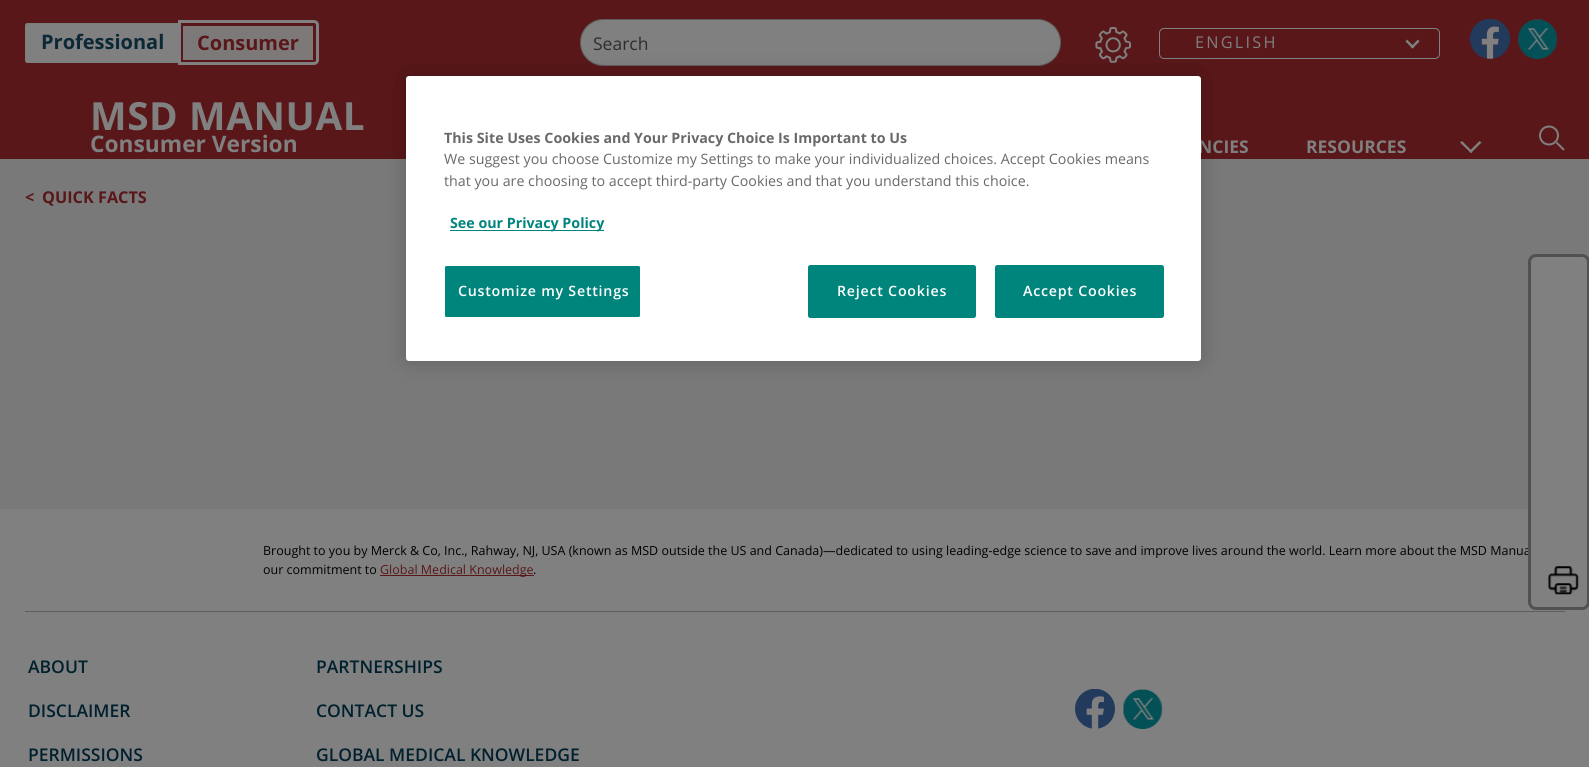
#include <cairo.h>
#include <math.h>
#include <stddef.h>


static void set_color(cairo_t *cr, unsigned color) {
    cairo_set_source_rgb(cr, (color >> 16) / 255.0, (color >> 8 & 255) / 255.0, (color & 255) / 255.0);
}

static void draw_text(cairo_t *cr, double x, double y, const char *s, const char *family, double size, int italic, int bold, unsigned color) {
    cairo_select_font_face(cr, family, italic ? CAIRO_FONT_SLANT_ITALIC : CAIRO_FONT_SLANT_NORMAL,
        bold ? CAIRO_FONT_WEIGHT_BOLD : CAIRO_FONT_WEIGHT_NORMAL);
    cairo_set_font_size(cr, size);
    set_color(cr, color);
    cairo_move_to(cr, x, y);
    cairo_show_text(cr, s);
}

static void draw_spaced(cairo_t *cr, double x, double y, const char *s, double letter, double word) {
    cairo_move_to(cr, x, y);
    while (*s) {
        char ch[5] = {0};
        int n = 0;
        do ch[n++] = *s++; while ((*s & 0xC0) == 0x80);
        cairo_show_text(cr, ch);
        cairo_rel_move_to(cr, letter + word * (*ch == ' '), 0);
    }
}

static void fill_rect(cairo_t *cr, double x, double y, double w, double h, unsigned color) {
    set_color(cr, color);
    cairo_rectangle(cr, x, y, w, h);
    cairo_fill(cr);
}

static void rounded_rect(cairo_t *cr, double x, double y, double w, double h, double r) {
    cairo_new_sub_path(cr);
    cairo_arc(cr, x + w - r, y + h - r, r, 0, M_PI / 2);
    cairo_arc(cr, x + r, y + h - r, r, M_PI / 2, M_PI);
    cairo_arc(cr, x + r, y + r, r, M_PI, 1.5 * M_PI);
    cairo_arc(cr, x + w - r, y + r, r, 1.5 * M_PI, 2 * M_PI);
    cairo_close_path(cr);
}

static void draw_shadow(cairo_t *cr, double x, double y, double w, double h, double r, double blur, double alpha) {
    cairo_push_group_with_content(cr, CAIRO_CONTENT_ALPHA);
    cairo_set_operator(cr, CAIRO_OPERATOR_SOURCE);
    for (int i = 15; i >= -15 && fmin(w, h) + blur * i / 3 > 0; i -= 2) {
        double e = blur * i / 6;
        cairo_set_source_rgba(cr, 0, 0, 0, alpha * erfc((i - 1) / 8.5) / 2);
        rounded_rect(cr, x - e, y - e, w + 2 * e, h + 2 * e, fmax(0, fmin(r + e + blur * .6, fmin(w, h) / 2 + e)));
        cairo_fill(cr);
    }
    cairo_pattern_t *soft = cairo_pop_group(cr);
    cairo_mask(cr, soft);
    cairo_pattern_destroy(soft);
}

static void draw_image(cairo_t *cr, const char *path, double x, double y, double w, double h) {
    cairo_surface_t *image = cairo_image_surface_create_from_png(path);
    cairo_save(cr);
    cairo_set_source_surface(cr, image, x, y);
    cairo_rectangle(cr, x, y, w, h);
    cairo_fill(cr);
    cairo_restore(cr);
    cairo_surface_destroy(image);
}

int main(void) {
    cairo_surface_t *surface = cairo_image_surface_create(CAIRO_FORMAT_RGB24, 1589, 767);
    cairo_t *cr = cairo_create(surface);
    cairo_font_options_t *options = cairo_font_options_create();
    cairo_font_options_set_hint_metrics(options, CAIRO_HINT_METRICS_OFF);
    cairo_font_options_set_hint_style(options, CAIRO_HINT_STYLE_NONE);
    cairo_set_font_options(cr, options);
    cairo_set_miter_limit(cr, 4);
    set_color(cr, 0x797979);
    cairo_paint(cr);
    fill_rect(cr, 0, 0, 1589, 159, 0x591719);
    set_color(cr, 0x808080);
    cairo_new_path(cr);
    cairo_move_to(cr, 27.5, 23.5);
    cairo_line_to(cr, 180.5, 23.5);
    cairo_line_to(cr, 180.5, 62.5);
    cairo_line_to(cr, 27.5, 62.5);
    cairo_curve_to(cr, 26.5, 62.5, 25.5, 61.5, 25.5, 60.5);
    cairo_line_to(cr, 25.5, 25.5);
    cairo_curve_to(cr, 25.5, 24.5, 26.5, 23.5, 27.5, 23.5);
    cairo_close_path(cr);
    cairo_fill_preserve(cr);
    set_color(cr, 0x7C7D7D);
    cairo_set_line_width(cr, 1);
    cairo_stroke(cr);
    draw_text(cr, 41, 49, "Professional", "Open Sans", 20, 0, 1, 0x0C2837);
    set_color(cr, 0x7D7979);
    cairo_new_path(cr);
    cairo_move_to(cr, 181.5, 24.5);
    cairo_line_to(cr, 313.5, 24.5);
    cairo_curve_to(cr, 314, 24.5, 314.5, 25, 314.5, 25.5);
    cairo_line_to(cr, 314.5, 60.5);
    cairo_curve_to(cr, 314.5, 61, 314, 61.5, 313.5, 61.5);
    cairo_line_to(cr, 181.5, 61.5);
    cairo_close_path(cr);
    cairo_fill_preserve(cr);
    set_color(cr, 0x591719);
    cairo_set_line_width(cr, 3);
    cairo_stroke(cr);
    cairo_new_path(cr);
    cairo_move_to(cr, 179.5, 21.5);
    cairo_line_to(cr, 314, 21.5);
    cairo_curve_to(cr, 316, 21.5, 317.5, 23, 317.5, 25);
    cairo_line_to(cr, 317.5, 60);
    cairo_curve_to(cr, 317.5, 62, 316, 63.5, 314, 63.5);
    cairo_line_to(cr, 179.5, 63.5);
    cairo_close_path(cr);
    set_color(cr, 0x808080);
    cairo_stroke(cr);
    draw_text(cr, 197, 50, "Consumer", "Open Sans", 20, 0, 1, 0x591719);
    set_color(cr, 0x808080);
    rounded_rect(cr, 580, 19, 481, 47, 23.5);
    cairo_fill(cr);
    rounded_rect(cr, 580.5, 19.5, 480, 46, 23);
    cairo_set_source_rgba(cr, 0, 0, 0, 0.27);
    cairo_set_line_width(cr, 1);
    cairo_stroke(cr);
    draw_text(cr, 593, 50, "Search", "Open Sans", 17.5, 0, 0, 0x2D2D2D);
    draw_image(cr, "assets/img1.png", 1095, 27, 36, 36);
    rounded_rect(cr, 1159.5, 28.5, 280, 30, 4.5);
    set_color(cr, 0x808080);
    cairo_stroke(cr);
    cairo_set_font_size(cr, 16.25);
    draw_spaced(cr, 1195, 48, "ENGLISH", 2.25, 0);
    cairo_new_path(cr);
    cairo_move_to(cr, 1418, 39.5);
    cairo_line_to(cr, 1419.5, 41.5);
    cairo_line_to(cr, 1412.5, 48.5);
    cairo_line_to(cr, 1410.5, 47);
    cairo_close_path(cr);
    cairo_fill(cr);
    cairo_new_path(cr);
    cairo_move_to(cr, 1407, 39.5);
    cairo_line_to(cr, 1414.5, 47);
    cairo_line_to(cr, 1412.5, 48.5);
    cairo_line_to(cr, 1405.5, 41.5);
    cairo_close_path(cr);
    cairo_fill(cr);
    draw_image(cr, "assets/img2.png", 1470, 19, 40, 40);
    draw_image(cr, "assets/img3.png", 1518, 19, 40, 40);
    cairo_select_font_face(cr, "Open Sans", CAIRO_FONT_SLANT_NORMAL, CAIRO_FONT_WEIGHT_BOLD);
    cairo_set_font_size(cr, 38.75);
    draw_spaced(cr, 90, 130, "MSD MANUAL", 0.6, 0);
    draw_text(cr, 90, 152, "Consumer Version", "Open Sans", 22.75, 0, 1, 0x808080);
    draw_text(cr, 1198, 153, "NCIES", "Open Sans", 17.5, 0, 1, 0x808080);
    draw_text(cr, 1306, 153, "RESOURCES", "Open Sans", 17.5, 0, 1, 0x808080);
    cairo_new_path(cr);
    cairo_move_to(cr, 1479.5, 141);
    cairo_line_to(cr, 1481.5, 142.5);
    cairo_line_to(cr, 1471, 153);
    cairo_line_to(cr, 1469, 151.5);
    cairo_close_path(cr);
    cairo_fill(cr);
    cairo_new_path(cr);
    cairo_move_to(cr, 1462, 141);
    cairo_line_to(cr, 1472.5, 151.5);
    cairo_line_to(cr, 1471, 153);
    cairo_line_to(cr, 1460, 142.5);
    cairo_close_path(cr);
    cairo_fill(cr);
    cairo_arc(cr, 1549, 135.5, 9, 0, 2 * M_PI);
    cairo_set_line_width(cr, 2);
    cairo_stroke(cr);
    cairo_new_path(cr);
    cairo_move_to(cr, 1564, 150);
    cairo_line_to(cr, 1556.5, 142.5);
    cairo_stroke(cr);
    draw_text(cr, 25, 203, "<", "Open Sans", 16.25, 0, 1, 0x591719);
    draw_text(cr, 42, 203, "QUICK FACTS", "Open Sans", 16.25, 0, 1, 0x591719);
    fill_rect(cr, 0, 509, 1589, 258, 0x808080);
    draw_text(cr, 263, 555, "Brought to you by Merck & Co, Inc., Rahway, NJ, USA (known as MSD outside the US and Canada)—dedicated to using leading-edge science to save and improve lives around the world. Learn more about the MSD Manua", "Open Sans", 12.5, 0, 0, 0x000000);
    set_color(cr, 0x808080);
    rounded_rect(cr, 1529.5, 255.5, 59, 353, 6.5);
    cairo_fill_preserve(cr);
    set_color(cr, 0x515151);
    cairo_set_line_width(cr, 3);
    cairo_stroke(cr);
    draw_image(cr, "assets/img4.png", 1548, 566, 31, 29);
    fill_rect(cr, 25, 611, 1540, 1, 0x5E5E5E);
    draw_text(cr, 263, 574, "our commitment to", "Open Sans", 12.5, 0, 0, 0x000000);
    fill_rect(cr, 380, 575, 154, 1, 0x591719);
    draw_text(cr, 380, 574, "Global Medical Knowledge", "Open Sans", 12.5, 0, 0, 0x591719);
    draw_text(cr, 533, 574, ".", "Open Sans", 12.5, 0, 0, 0x000000);
    draw_text(cr, 28, 673, "ABOUT", "Open Sans SemiBold", 17.5, 0, 0, 0x00202E);
    draw_text(cr, 316, 673, "PARTNERSHIPS", "Open Sans SemiBold", 17.5, 0, 0, 0x00202E);
    draw_text(cr, 28, 717, "DISCLAIMER", "Open Sans SemiBold", 17.5, 0, 0, 0x00202E);
    draw_text(cr, 316, 717, "CONTACT US", "Open Sans SemiBold", 17.5, 0, 0, 0x00202E);
    draw_text(cr, 28, 761, "PERMISSIONS", "Open Sans SemiBold", 17.5, 0, 0, 0x00202E);
    draw_text(cr, 316, 761, "GLOBAL MEDICAL KNOWLEDGE", "Open Sans SemiBold", 17.5, 0, 0, 0x00202E);
    draw_image(cr, "assets/img5.png", 1075, 689, 40, 40);
    draw_image(cr, "assets/img6.png", 1123, 689, 40, 40);
    set_color(cr, 0x000000);
    draw_shadow(cr, 406, 76, 795, 285, 3, 11, 0.2);
    set_color(cr, 0xFFFFFF);
    rounded_rect(cr, 406, 76, 795, 285, 3);
    cairo_fill(cr);
    draw_text(cr, 444, 143, "This Site Uses Cookies and Your Privacy Choice Is Important to Us", "Open Sans", 14.25, 0, 1, 0x696969);
    draw_text(cr, 444, 164, "We suggest you choose Customize my Settings to make your individualized choices. Accept Cookies means", "Open Sans", 14.25, 0, 0, 0x696969);
    draw_text(cr, 444, 186, "that you are choosing to accept third-party Cookies and that you understand this choice.", "Open Sans", 14.25, 0, 0, 0x696969);
    fill_rect(cr, 450, 230, 154, 1, 0x00857C);
    draw_text(cr, 450, 228, "See our Privacy Policy", "Open Sans", 14.25, 0, 1, 0x00857C);
    rounded_rect(cr, 444.5, 265.5, 196, 52, 2);
    cairo_fill_preserve(cr);
    set_color(cr, 0xFFFFFF);
    cairo_set_line_width(cr, 1);
    cairo_stroke(cr);
    cairo_select_font_face(cr, "Open Sans SemiBold", CAIRO_FONT_SLANT_NORMAL, CAIRO_FONT_WEIGHT_NORMAL);
    draw_spaced(cr, 458, 296, "Customize my Settings", 0.75, 0);
    set_color(cr, 0x00857C);
    rounded_rect(cr, 808.5, 265.5, 167, 52, 2);
    cairo_fill_preserve(cr);
    cairo_stroke(cr);
    set_color(cr, 0xFFFFFF);
    draw_spaced(cr, 837, 296, "Reject Cookies", 0.75, 0);
    set_color(cr, 0x00857C);
    rounded_rect(cr, 995.5, 265.5, 168, 52, 2);
    cairo_fill_preserve(cr);
    cairo_stroke(cr);
    set_color(cr, 0xFFFFFF);
    draw_spaced(cr, 1023, 296, "Accept Cookies", 0.75, 0);
    cairo_surface_write_to_png(surface, "output.png");
    cairo_font_options_destroy(options);
    cairo_destroy(cr);
    cairo_surface_destroy(surface);
    return 0;
}
